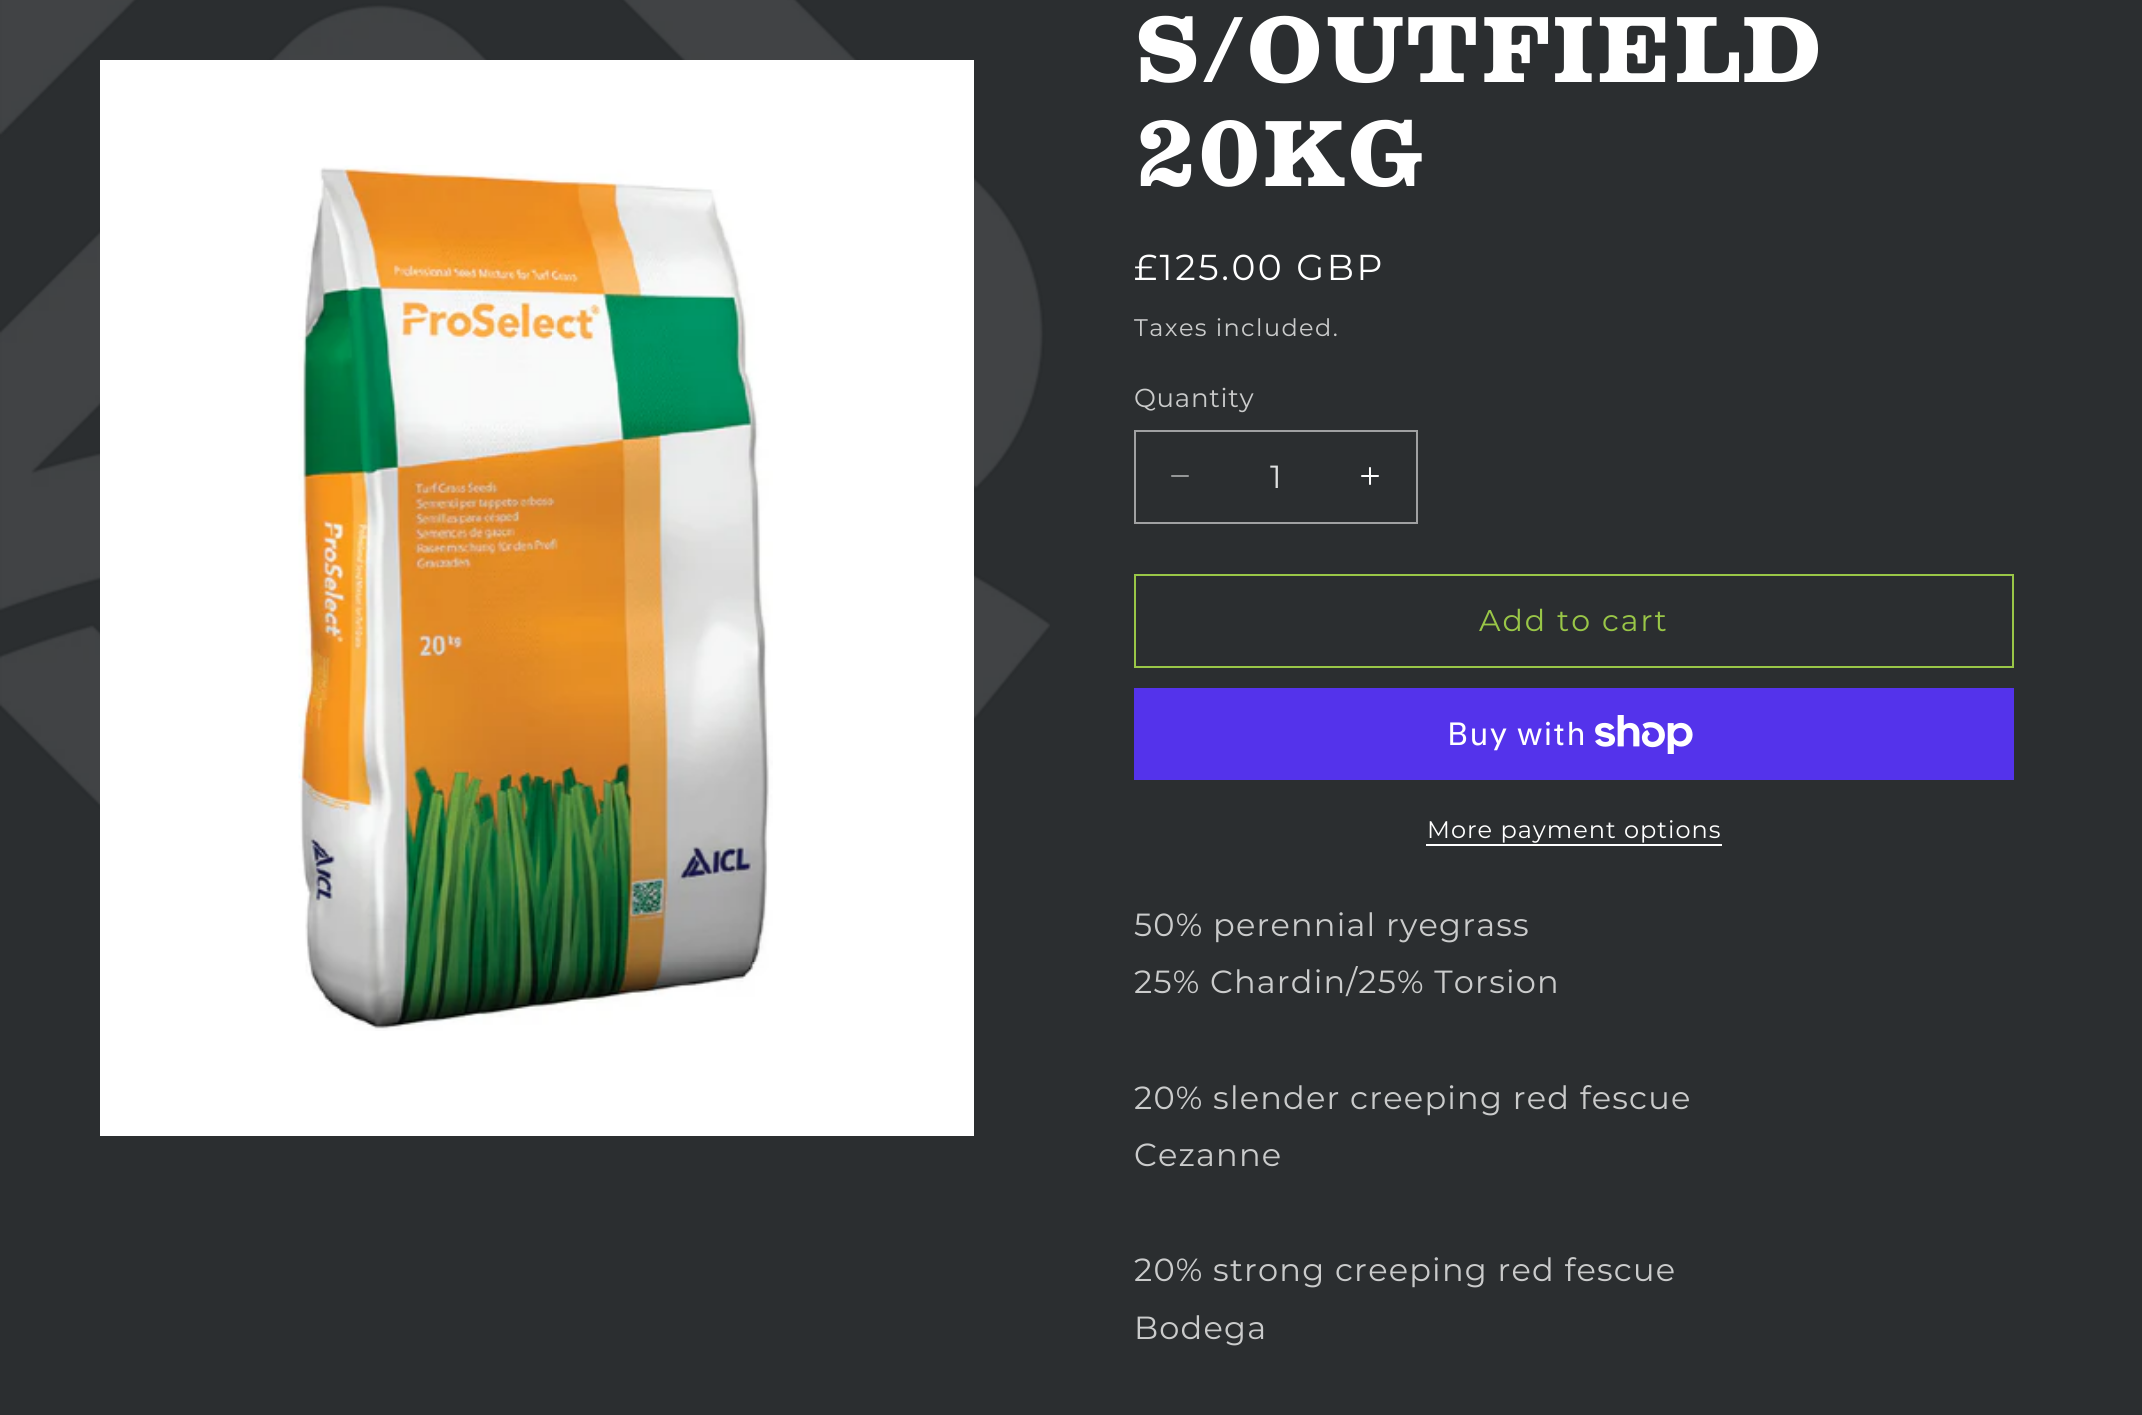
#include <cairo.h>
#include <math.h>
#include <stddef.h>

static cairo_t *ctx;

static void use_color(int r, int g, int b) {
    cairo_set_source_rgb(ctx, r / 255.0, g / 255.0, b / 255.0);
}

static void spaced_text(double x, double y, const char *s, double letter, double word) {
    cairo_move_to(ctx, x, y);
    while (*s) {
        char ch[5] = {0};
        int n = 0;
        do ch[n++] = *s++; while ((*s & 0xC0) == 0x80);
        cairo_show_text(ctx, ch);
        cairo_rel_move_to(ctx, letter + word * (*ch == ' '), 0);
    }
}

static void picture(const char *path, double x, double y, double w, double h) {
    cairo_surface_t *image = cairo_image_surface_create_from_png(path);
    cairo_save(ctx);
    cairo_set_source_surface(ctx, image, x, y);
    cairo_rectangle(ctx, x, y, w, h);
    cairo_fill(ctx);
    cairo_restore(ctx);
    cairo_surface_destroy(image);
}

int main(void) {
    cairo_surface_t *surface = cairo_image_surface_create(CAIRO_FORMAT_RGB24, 2142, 1415);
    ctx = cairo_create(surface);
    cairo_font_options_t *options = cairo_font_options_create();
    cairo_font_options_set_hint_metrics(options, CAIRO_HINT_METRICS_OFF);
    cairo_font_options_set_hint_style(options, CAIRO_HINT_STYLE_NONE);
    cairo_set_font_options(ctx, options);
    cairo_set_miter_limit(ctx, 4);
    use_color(43, 46, 48);
    cairo_paint(ctx);
    picture("img1.png", 0, 0, 1050, 809);
    use_color(255, 255, 255);
    cairo_rectangle(ctx, 100, 60, 874, 1076);
    cairo_fill(ctx);
    picture("img2.png", 298, 165, 475, 866);
    cairo_select_font_face(ctx, "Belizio", CAIRO_FONT_SLANT_NORMAL, CAIRO_FONT_WEIGHT_BOLD);
    cairo_set_font_size(ctx, 80);
    spaced_text(1134, 82, "S/OUTFIELD", 1.2, 0);
    spaced_text(1134, 186, "20KG", 1.2, 0);
    cairo_select_font_face(ctx, "Montserrat", CAIRO_FONT_SLANT_NORMAL, CAIRO_FONT_WEIGHT_NORMAL);
    cairo_set_font_size(ctx, 36);
    spaced_text(1134, 280, "£125.00 GBP", 2.6, 0);
    cairo_set_font_size(ctx, 24);
    use_color(202, 203, 203);
    spaced_text(1134, 336, "Taxes included.", 1.4, 0);
    cairo_set_font_size(ctx, 26);
    spaced_text(1134, 407, "Quantity", 0.75, 0);
    picture("img3.png", 1171, 475, 18, 2);
    picture("img4.png", 1361, 467, 18, 18);
    cairo_rectangle(ctx, 1135, 431, 282, 92);
    use_color(160, 161, 162);
    cairo_stroke(ctx);
    cairo_set_font_size(ctx, 32);
    use_color(223, 224, 224);
    cairo_move_to(ctx, 1270, 488);
    cairo_show_text(ctx, "1");
    cairo_rectangle(ctx, 1135, 575, 878, 92);
    use_color(153, 198, 71);
    cairo_stroke(ctx);
    cairo_set_font_size(ctx, 30);
    spaced_text(1479, 631, "Add to cart", 2, 0);
    use_color(84, 51, 235);
    cairo_rectangle(ctx, 1134, 688, 880, 92);
    cairo_fill(ctx);
    cairo_select_font_face(ctx, "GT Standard", CAIRO_FONT_SLANT_NORMAL, CAIRO_FONT_WEIGHT_NORMAL);
    cairo_set_font_size(ctx, 32);
    use_color(255, 255, 255);
    spaced_text(1447, 745, "Buy with", 1.2, 0);
    picture("img5.png", 1595, 715, 98, 39);
    cairo_select_font_face(ctx, "Montserrat", CAIRO_FONT_SLANT_NORMAL, CAIRO_FONT_WEIGHT_NORMAL);
    cairo_set_font_size(ctx, 24);
    spaced_text(1427, 838, "More payment options", 1, 0);
    cairo_rectangle(ctx, 1426, 844, 296, 2);
    cairo_fill(ctx);
    cairo_set_font_size(ctx, 32);
    use_color(202, 203, 203);
    spaced_text(1134, 936, "50% perennial ryegrass", 1.2, 0);
    spaced_text(1134, 993, "25% Chardin/25% Torsion", 1.2, 0);
    spaced_text(1134, 1109, "20% slender creeping red fescue", 1.2, 0);
    spaced_text(1134, 1166, "Cezanne", 1.2, 0);
    spaced_text(1134, 1281, "20% strong creeping red fescue", 1.2, 0);
    spaced_text(1134, 1339, "Bodega", 1.2, 0);
    cairo_surface_write_to_png(surface, "result.png");
    cairo_font_options_destroy(options);
    cairo_destroy(ctx);
    cairo_surface_destroy(surface);
    return 0;
}
